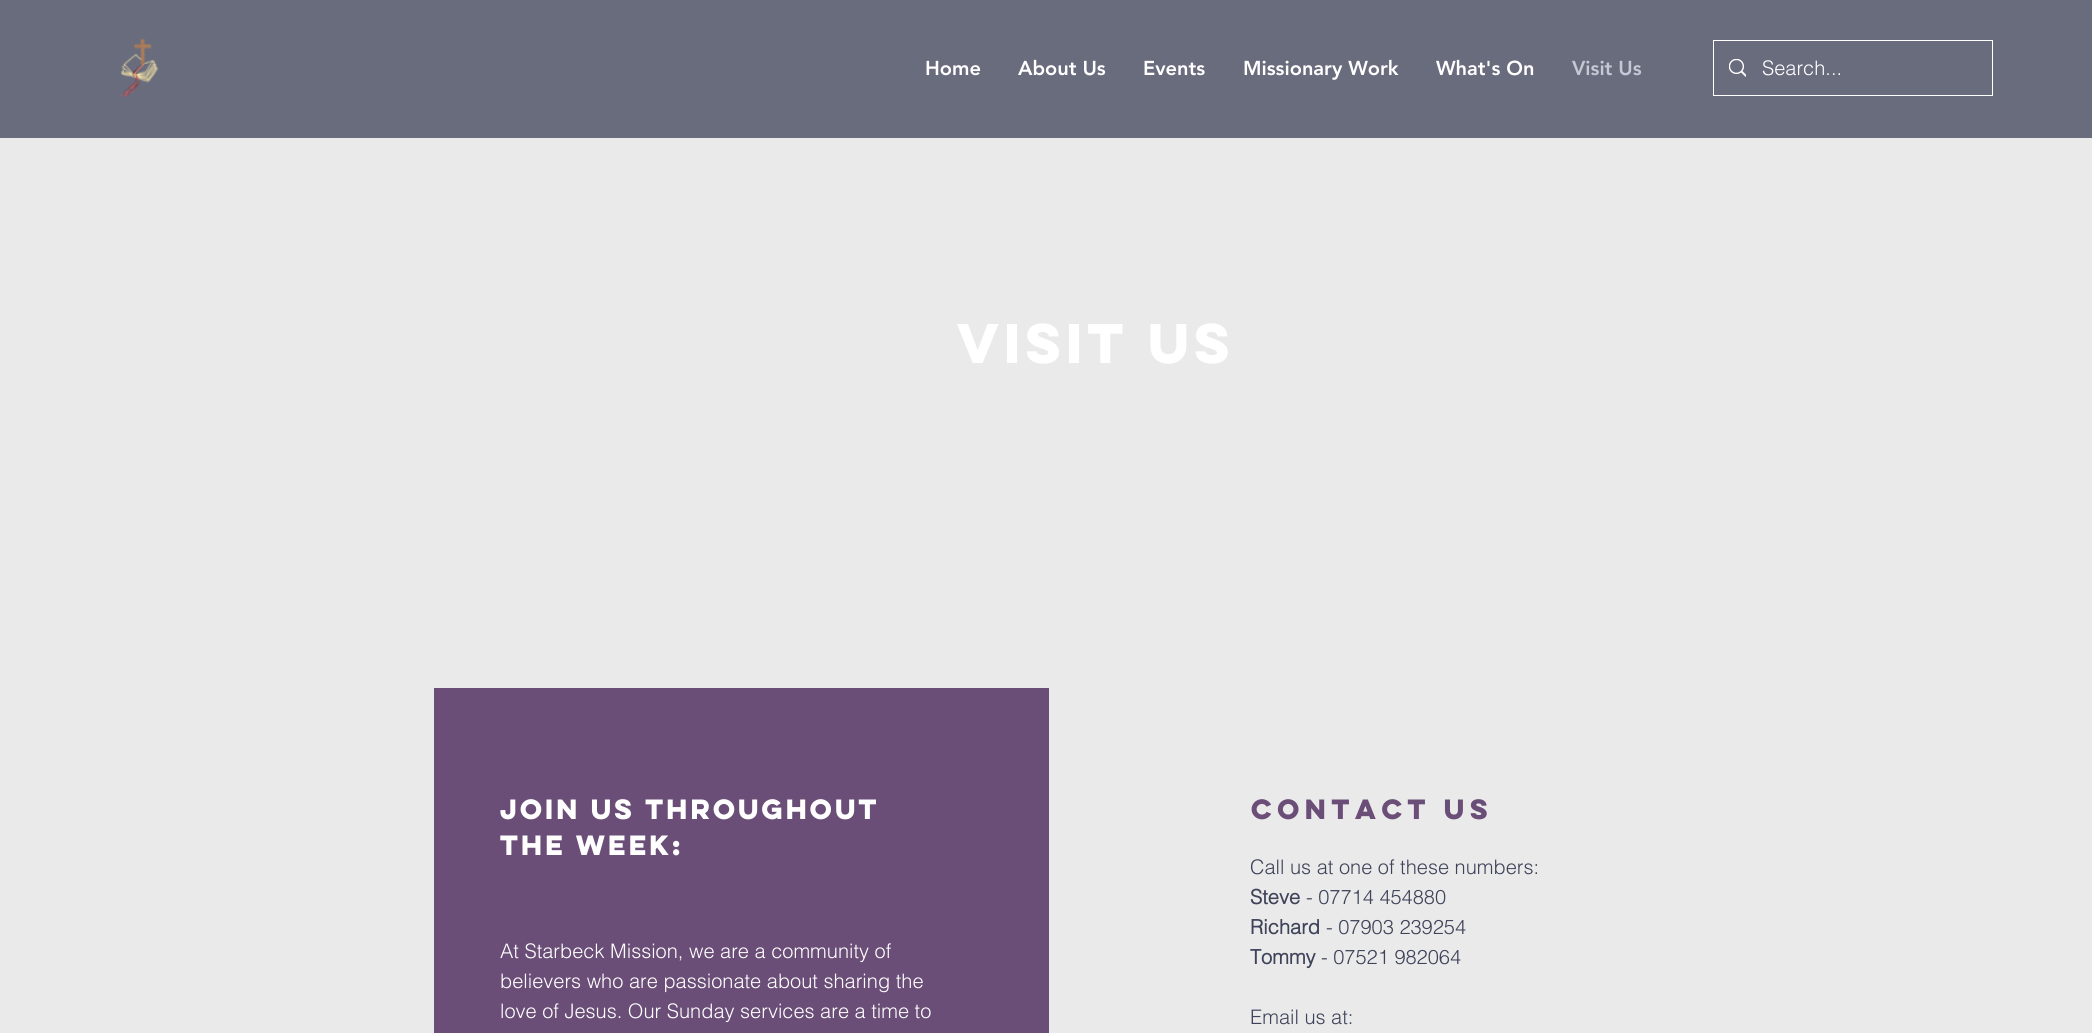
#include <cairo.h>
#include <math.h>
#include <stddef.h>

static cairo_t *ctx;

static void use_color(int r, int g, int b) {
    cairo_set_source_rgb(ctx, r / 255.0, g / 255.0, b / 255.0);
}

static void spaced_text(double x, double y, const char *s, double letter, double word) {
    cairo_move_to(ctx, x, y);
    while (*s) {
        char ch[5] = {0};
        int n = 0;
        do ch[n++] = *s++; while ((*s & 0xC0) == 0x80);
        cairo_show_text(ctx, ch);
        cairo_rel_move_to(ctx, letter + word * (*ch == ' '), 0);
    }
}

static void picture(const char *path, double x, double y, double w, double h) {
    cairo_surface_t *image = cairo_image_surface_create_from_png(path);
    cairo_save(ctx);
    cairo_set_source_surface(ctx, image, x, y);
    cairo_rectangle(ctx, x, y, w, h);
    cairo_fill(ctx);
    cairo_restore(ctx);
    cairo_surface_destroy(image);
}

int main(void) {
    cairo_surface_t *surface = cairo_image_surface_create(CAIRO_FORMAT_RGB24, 2092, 1033);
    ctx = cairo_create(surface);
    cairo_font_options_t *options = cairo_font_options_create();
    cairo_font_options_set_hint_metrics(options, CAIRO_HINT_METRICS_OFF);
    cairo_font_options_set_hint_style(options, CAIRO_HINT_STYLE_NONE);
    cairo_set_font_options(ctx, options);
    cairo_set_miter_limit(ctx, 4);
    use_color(234, 234, 234);
    cairo_paint(ctx);
    use_color(105, 108, 125);
    cairo_rectangle(ctx, 0, 0, 2092, 138);
    cairo_fill(ctx);
    picture("img1.png", 119, 38, 39, 60);
    cairo_select_font_face(ctx, "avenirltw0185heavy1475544 Black", CAIRO_FONT_SLANT_NORMAL, CAIRO_FONT_WEIGHT_NORMAL);
    cairo_set_font_size(ctx, 20);
    use_color(255, 255, 255);
    cairo_move_to(ctx, 925, 75);
    cairo_show_text(ctx, "Home");
    cairo_move_to(ctx, 1018, 75);
    cairo_show_text(ctx, "About Us");
    cairo_move_to(ctx, 1143, 75);
    cairo_show_text(ctx, "Events");
    cairo_move_to(ctx, 1243, 75);
    cairo_show_text(ctx, "Missionary Work");
    cairo_move_to(ctx, 1436, 75);
    cairo_show_text(ctx, "What's On");
    use_color(198, 200, 213);
    cairo_move_to(ctx, 1572, 75);
    cairo_show_text(ctx, "Visit Us");
    cairo_rectangle(ctx, 1713.5, 40.5, 279, 55);
    use_color(255, 255, 255);
    cairo_set_line_width(ctx, 1);
    cairo_stroke(ctx);
    picture("img2.png", 1729, 59, 17, 18);
    cairo_select_font_face(ctx, "helvetica Light", CAIRO_FONT_SLANT_NORMAL, CAIRO_FONT_WEIGHT_NORMAL);
    cairo_move_to(ctx, 1762, 75);
    cairo_show_text(ctx, "Search...");
    cairo_select_font_face(ctx, "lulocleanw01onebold", CAIRO_FONT_SLANT_NORMAL, CAIRO_FONT_WEIGHT_BOLD);
    cairo_set_font_size(ctx, 50);
    spaced_text(957, 363, "Visit us", -6, 0);
    use_color(106, 78, 119);
    cairo_rectangle(ctx, 434, 688, 615, 345);
    cairo_fill(ctx);
    cairo_set_font_size(ctx, 25);
    use_color(255, 255, 255);
    spaced_text(500, 819, "Join us throughout", -2.5, 0);
    spaced_text(500, 855, "the week:", -2.5, 0);
    cairo_select_font_face(ctx, "helvetica Light", CAIRO_FONT_SLANT_NORMAL, CAIRO_FONT_WEIGHT_NORMAL);
    cairo_set_font_size(ctx, 20);
    cairo_move_to(ctx, 500, 958);
    cairo_show_text(ctx, "At Starbeck Mission, we are a community of");
    cairo_move_to(ctx, 500, 988);
    cairo_show_text(ctx, "believers who are passionate about sharing the");
    cairo_move_to(ctx, 500, 1018);
    cairo_show_text(ctx, "love of Jesus. Our Sunday services are a time to");
    cairo_select_font_face(ctx, "lulocleanw01onebold", CAIRO_FONT_SLANT_NORMAL, CAIRO_FONT_WEIGHT_BOLD);
    cairo_set_font_size(ctx, 25);
    use_color(106, 78, 119);
    cairo_move_to(ctx, 1251, 819);
    cairo_show_text(ctx, "Contact Us");
    cairo_select_font_face(ctx, "helvetica Light", CAIRO_FONT_SLANT_NORMAL, CAIRO_FONT_WEIGHT_NORMAL);
    cairo_set_font_size(ctx, 20);
    use_color(63, 67, 89);
    cairo_move_to(ctx, 1250, 874);
    cairo_show_text(ctx, "Call us at one of these numbers:");
    cairo_select_font_face(ctx, "helvetica", CAIRO_FONT_SLANT_NORMAL, CAIRO_FONT_WEIGHT_BOLD);
    cairo_move_to(ctx, 1250, 904);
    cairo_show_text(ctx, "Steve");
    cairo_select_font_face(ctx, "helvetica Light", CAIRO_FONT_SLANT_NORMAL, CAIRO_FONT_WEIGHT_NORMAL);
    cairo_move_to(ctx, 1306, 904);
    cairo_show_text(ctx, "- 07714 454880");
    cairo_select_font_face(ctx, "helvetica", CAIRO_FONT_SLANT_NORMAL, CAIRO_FONT_WEIGHT_BOLD);
    cairo_move_to(ctx, 1250, 934);
    cairo_show_text(ctx, "Richard");
    cairo_select_font_face(ctx, "helvetica Light", CAIRO_FONT_SLANT_NORMAL, CAIRO_FONT_WEIGHT_NORMAL);
    cairo_move_to(ctx, 1326, 934);
    cairo_show_text(ctx, "- 07903 239254");
    cairo_select_font_face(ctx, "helvetica", CAIRO_FONT_SLANT_NORMAL, CAIRO_FONT_WEIGHT_BOLD);
    cairo_move_to(ctx, 1250, 964);
    cairo_show_text(ctx, "Tommy");
    cairo_select_font_face(ctx, "helvetica Light", CAIRO_FONT_SLANT_NORMAL, CAIRO_FONT_WEIGHT_NORMAL);
    cairo_move_to(ctx, 1321, 964);
    cairo_show_text(ctx, "- 07521 982064");
    cairo_move_to(ctx, 1250, 1024);
    cairo_show_text(ctx, "Email us at:");
    cairo_surface_write_to_png(surface, "result.png");
    cairo_font_options_destroy(options);
    cairo_destroy(ctx);
    cairo_surface_destroy(surface);
    return 0;
}
